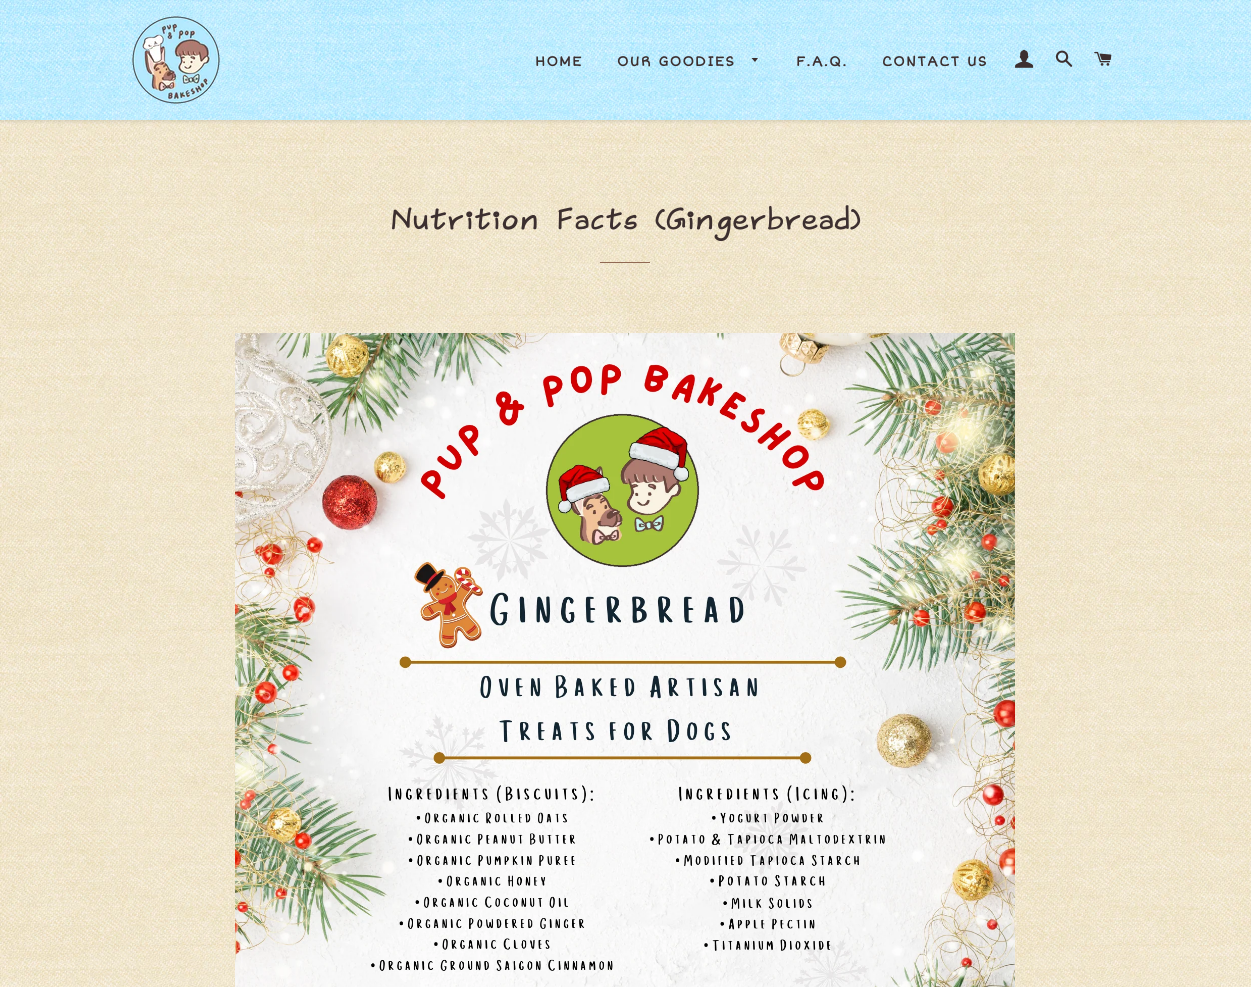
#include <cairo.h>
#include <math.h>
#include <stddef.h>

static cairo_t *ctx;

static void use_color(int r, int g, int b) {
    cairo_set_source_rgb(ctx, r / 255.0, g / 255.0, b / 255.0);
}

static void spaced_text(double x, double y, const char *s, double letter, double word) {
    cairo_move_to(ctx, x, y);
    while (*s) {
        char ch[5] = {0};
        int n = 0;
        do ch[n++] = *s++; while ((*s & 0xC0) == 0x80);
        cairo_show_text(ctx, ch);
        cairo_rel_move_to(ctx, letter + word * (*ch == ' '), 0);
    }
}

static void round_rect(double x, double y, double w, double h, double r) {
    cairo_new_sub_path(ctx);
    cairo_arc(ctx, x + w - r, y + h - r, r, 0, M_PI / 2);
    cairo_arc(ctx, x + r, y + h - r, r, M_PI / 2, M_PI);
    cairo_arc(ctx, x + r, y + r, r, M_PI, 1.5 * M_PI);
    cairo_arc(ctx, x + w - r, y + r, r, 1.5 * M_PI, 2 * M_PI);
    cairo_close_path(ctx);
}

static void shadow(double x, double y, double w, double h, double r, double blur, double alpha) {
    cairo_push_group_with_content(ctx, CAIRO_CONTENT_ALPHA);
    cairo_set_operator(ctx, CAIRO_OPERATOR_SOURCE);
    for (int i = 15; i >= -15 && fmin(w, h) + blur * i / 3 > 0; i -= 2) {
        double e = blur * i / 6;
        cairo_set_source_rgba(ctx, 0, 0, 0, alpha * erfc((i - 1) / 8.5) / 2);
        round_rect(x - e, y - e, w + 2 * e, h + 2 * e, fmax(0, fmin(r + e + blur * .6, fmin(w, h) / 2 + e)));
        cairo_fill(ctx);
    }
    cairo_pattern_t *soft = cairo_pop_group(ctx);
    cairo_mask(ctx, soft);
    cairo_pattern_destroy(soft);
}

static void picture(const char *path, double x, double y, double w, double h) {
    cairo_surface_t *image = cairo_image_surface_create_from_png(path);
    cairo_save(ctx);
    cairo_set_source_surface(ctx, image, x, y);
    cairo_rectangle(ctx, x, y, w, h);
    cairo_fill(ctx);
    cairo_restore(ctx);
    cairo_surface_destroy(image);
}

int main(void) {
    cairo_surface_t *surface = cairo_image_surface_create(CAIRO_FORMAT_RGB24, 1251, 987);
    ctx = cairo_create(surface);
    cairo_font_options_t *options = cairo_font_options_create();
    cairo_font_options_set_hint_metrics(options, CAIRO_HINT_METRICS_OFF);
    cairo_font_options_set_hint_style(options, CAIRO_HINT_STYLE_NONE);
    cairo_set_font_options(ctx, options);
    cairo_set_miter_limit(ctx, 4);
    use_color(255, 255, 255);
    cairo_paint(ctx);
    picture("img1.png", 0, 120, 1251, 867);
    use_color(0, 0, 0);
    shadow(0, 2, 1251, 120, 0, 2, 0.1);
    picture("img2.png", 0, 0, 1251, 120);
    picture("img3.png", 132, 16, 88, 88);
    cairo_select_font_face(ctx, "Short Stack", CAIRO_FONT_SLANT_NORMAL, CAIRO_FONT_WEIGHT_BOLD);
    cairo_set_font_size(ctx, 14);
    use_color(60, 47, 47);
    spaced_text(535, 66, "HOME", 1.4, 0);
    spaced_text(617, 66, "OUR GOODIES", 1.4, 0);
    cairo_new_path(ctx);
    cairo_move_to(ctx, 751.5, 58);
    cairo_line_to(ctx, 755, 62);
    cairo_line_to(ctx, 758, 58);
    cairo_close_path(ctx);
    cairo_fill(ctx);
    spaced_text(796, 66, "F.A.Q.", 1.4, 0);
    spaced_text(882, 66, "CONTACT US", 1.4, 0);
    picture("img4.png", 1015, 49, 19, 19);
    picture("img5.png", 1055, 50, 18, 17);
    picture("img6.png", 1094, 51, 18, 15);
    cairo_select_font_face(ctx, "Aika", CAIRO_FONT_SLANT_NORMAL, CAIRO_FONT_WEIGHT_BOLD);
    cairo_set_font_size(ctx, 30);
    cairo_move_to(ctx, 391, 229);
    cairo_show_text(ctx, "Nutrition Facts (Gingerbread)");
    use_color(145, 105, 83);
    cairo_rectangle(ctx, 600, 262, 50, 1);
    cairo_fill(ctx);
    picture("img7.png", 235, 333, 780, 654);
    cairo_surface_write_to_png(surface, "result.png");
    cairo_font_options_destroy(options);
    cairo_destroy(ctx);
    cairo_surface_destroy(surface);
    return 0;
}
